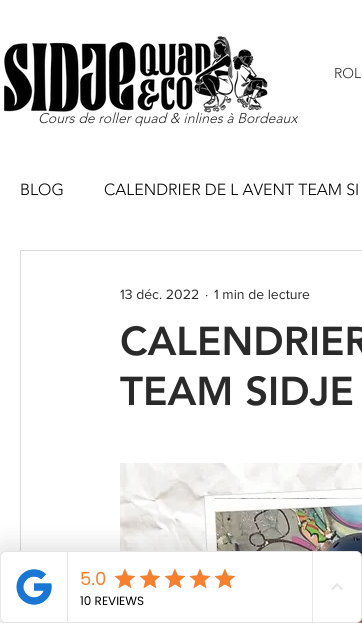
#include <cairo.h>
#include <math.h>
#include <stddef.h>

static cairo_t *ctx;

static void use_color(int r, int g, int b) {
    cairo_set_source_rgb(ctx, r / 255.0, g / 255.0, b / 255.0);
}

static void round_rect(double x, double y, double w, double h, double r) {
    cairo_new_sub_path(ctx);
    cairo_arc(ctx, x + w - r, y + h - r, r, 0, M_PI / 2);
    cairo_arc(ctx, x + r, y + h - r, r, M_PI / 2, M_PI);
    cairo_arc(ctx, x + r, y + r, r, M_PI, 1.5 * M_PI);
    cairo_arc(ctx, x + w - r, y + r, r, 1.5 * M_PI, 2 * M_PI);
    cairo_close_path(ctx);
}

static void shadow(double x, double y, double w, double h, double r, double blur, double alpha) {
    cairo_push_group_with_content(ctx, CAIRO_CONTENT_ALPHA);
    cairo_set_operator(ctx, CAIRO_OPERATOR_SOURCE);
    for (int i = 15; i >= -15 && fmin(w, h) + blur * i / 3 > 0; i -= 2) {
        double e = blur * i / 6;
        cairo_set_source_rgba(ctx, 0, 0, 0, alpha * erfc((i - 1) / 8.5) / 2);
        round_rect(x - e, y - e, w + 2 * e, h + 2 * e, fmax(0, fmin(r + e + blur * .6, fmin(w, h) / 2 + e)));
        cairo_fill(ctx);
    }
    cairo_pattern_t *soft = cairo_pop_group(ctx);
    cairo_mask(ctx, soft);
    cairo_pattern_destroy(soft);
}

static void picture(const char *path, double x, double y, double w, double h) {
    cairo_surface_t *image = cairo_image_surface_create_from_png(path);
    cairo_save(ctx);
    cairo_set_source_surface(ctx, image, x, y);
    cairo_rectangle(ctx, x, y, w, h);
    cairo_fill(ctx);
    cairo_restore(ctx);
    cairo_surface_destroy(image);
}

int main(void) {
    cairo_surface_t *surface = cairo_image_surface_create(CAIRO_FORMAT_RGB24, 362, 623);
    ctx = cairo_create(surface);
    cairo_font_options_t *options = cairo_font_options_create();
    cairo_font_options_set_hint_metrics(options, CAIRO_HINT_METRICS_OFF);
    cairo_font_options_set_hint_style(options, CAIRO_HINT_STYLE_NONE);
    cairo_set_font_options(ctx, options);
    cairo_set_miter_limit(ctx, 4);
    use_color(255, 255, 255);
    cairo_paint(ctx);
    cairo_select_font_face(ctx, "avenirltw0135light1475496 Light", CAIRO_FONT_SLANT_ITALIC, CAIRO_FONT_WEIGHT_NORMAL);
    cairo_set_font_size(ctx, 14);
    use_color(42, 42, 42);
    cairo_move_to(ctx, 38, 123);
    cairo_show_text(ctx, "Cours de roller quad & inlines à Bordeaux");
    picture("img1.png", 4, 36, 264, 77);
    cairo_select_font_face(ctx, "avenirltw0135light1475496 Light", CAIRO_FONT_SLANT_NORMAL, CAIRO_FONT_WEIGHT_NORMAL);
    cairo_move_to(ctx, 334, 78);
    cairo_show_text(ctx, "ROL");
    cairo_set_font_size(ctx, 16);
    use_color(0, 0, 0);
    cairo_move_to(ctx, 20, 195);
    cairo_show_text(ctx, "BLOG");
    cairo_move_to(ctx, 104, 195);
    cairo_show_text(ctx, "CALENDRIER DE L AVENT TEAM SI");
    cairo_rectangle(ctx, 20.5, 250.5, 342, 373);
    use_color(217, 217, 217);
    cairo_set_line_width(ctx, 1);
    cairo_stroke(ctx);
    cairo_select_font_face(ctx, "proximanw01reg", CAIRO_FONT_SLANT_NORMAL, CAIRO_FONT_WEIGHT_NORMAL);
    cairo_set_font_size(ctx, 14);
    use_color(42, 42, 42);
    cairo_move_to(ctx, 120, 299);
    cairo_show_text(ctx, "13 déc. 2022");
    cairo_move_to(ctx, 205, 299);
    cairo_show_text(ctx, "·");
    cairo_move_to(ctx, 214, 299);
    cairo_show_text(ctx, "1 min de lecture");
    cairo_select_font_face(ctx, "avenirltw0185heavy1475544 Black", CAIRO_FONT_SLANT_NORMAL, CAIRO_FONT_WEIGHT_NORMAL);
    cairo_set_font_size(ctx, 40);
    cairo_move_to(ctx, 120, 355);
    cairo_show_text(ctx, "CALENDRIER");
    cairo_move_to(ctx, 120, 405);
    cairo_show_text(ctx, "TEAM SIDJE");
    picture("img2.png", 120, 463, 242, 160);
    use_color(0, 0, 0);
    shadow(-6, 545, 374, 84, 12, 12, 0.12);
    use_color(255, 255, 255);
    round_rect(0.5, 551.5, 361, 71, 5.5);
    cairo_fill_preserve(ctx);
    use_color(229, 229, 229);
    cairo_stroke(ctx);
    use_color(255, 255, 255);
    cairo_new_path(ctx);
    cairo_move_to(ctx, 7, 552);
    cairo_line_to(ctx, 68, 552);
    cairo_line_to(ctx, 68, 622);
    cairo_line_to(ctx, 7, 622);
    cairo_curve_to(ctx, 3.5, 622, 1, 619.5, 1, 616);
    cairo_line_to(ctx, 1, 558);
    cairo_curve_to(ctx, 1, 554.5, 3.5, 552, 7, 552);
    cairo_close_path(ctx);
    cairo_fill(ctx);
    use_color(229, 229, 229);
    cairo_rectangle(ctx, 67, 552, 1, 70);
    cairo_fill(ctx);
    picture("img3.png", 16, 569, 36, 36);
    cairo_rectangle(ctx, 312, 552, 1, 70);
    cairo_fill(ctx);
    cairo_select_font_face(ctx, "Poppins", CAIRO_FONT_SLANT_NORMAL, CAIRO_FONT_WEIGHT_NORMAL);
    cairo_set_font_size(ctx, 18);
    use_color(247, 128, 47);
    cairo_move_to(ctx, 80, 585);
    cairo_show_text(ctx, "5.0");
    picture("img5.png", 114, 569, 21, 19);
    picture("img4.png", 114, 568, 22, 21);
    picture("img5.png", 139, 569, 21, 19);
    picture("img4.png", 139, 568, 22, 21);
    picture("img5.png", 164, 569, 21, 19);
    picture("img4.png", 164, 568, 22, 21);
    picture("img5.png", 189, 569, 21, 19);
    picture("img4.png", 189, 568, 22, 21);
    picture("img5.png", 214, 569, 21, 19);
    picture("img4.png", 214, 568, 22, 21);
    cairo_set_font_size(ctx, 12);
    use_color(0, 0, 0);
    cairo_move_to(ctx, 80, 605);
    cairo_show_text(ctx, "10 REVIEWS");
    picture("img6.png", 331, 583, 12, 8);
    cairo_surface_write_to_png(surface, "result.png");
    cairo_font_options_destroy(options);
    cairo_destroy(ctx);
    cairo_surface_destroy(surface);
    return 0;
}
